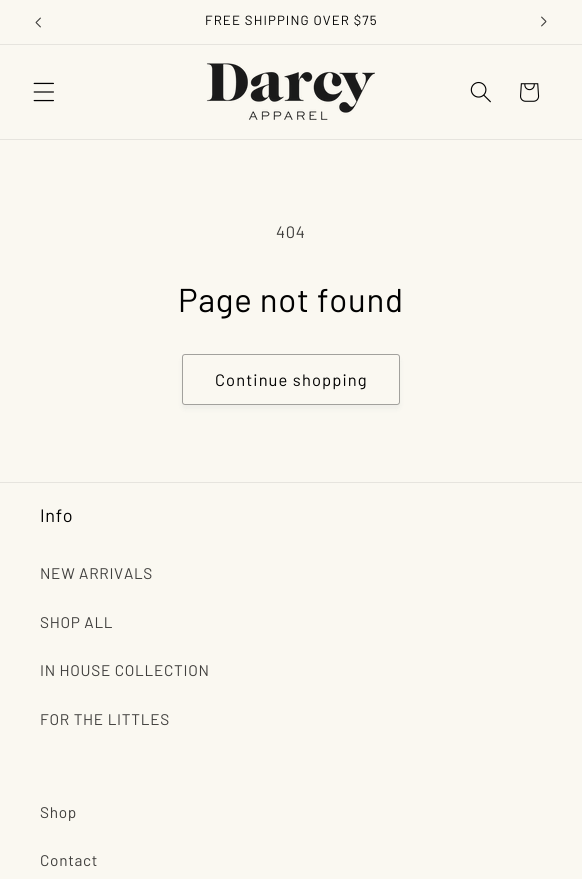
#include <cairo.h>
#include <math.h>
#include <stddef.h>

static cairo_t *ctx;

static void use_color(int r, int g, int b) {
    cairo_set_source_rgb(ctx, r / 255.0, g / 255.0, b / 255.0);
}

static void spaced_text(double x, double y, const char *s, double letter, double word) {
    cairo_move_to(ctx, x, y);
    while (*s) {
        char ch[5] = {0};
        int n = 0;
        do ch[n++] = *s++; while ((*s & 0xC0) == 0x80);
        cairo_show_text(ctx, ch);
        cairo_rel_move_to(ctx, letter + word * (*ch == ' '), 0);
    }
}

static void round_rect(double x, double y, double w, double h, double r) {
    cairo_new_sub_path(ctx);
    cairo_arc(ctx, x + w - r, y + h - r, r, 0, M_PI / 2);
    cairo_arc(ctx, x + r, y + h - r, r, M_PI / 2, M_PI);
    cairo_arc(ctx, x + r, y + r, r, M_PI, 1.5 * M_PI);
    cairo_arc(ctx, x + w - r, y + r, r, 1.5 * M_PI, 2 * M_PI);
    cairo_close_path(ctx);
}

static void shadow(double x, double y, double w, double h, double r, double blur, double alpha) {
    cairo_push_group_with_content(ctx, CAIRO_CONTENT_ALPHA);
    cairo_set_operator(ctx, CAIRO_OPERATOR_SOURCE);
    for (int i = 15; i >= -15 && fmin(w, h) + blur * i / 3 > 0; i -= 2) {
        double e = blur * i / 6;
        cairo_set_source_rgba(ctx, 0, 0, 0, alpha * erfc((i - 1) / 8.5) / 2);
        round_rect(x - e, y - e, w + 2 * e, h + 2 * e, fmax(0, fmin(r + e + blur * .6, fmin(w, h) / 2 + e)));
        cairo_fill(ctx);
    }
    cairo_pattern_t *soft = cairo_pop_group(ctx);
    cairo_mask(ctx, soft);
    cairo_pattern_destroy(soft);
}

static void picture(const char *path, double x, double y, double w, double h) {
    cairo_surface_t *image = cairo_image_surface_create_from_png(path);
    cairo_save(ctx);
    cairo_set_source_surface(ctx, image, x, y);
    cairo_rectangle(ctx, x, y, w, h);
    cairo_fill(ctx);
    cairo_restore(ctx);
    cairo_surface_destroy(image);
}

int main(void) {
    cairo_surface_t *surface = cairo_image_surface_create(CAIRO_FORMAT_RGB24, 582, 879);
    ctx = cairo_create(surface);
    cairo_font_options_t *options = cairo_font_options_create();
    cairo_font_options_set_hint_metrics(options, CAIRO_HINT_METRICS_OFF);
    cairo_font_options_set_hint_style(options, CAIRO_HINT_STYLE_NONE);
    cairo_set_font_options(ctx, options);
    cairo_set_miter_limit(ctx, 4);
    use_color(250, 248, 241);
    cairo_paint(ctx);
    use_color(230, 228, 222);
    cairo_rectangle(ctx, 0, 44, 582, 1);
    cairo_fill(ctx);
    picture("img1.png", 35, 17, 6, 11);
    cairo_select_font_face(ctx, "Barlow", CAIRO_FONT_SLANT_NORMAL, CAIRO_FONT_WEIGHT_NORMAL);
    cairo_set_font_size(ctx, 13.25);
    use_color(0, 0, 0);
    spaced_text(205, 25, "FREE SHIPPING OVER $75", 1.1, 0);
    picture("img2.png", 541, 16, 6, 11);
    use_color(230, 228, 222);
    cairo_rectangle(ctx, 0, 139, 582, 1);
    cairo_fill(ctx);
    picture("img3.png", 33, 82, 21, 20);
    picture("img4.png", 206, 63, 169, 57);
    picture("img5.png", 470, 81, 21, 22);
    picture("img6.png", 520, 83, 20, 19);
    cairo_set_font_size(ctx, 16.5);
    use_color(63, 62, 60);
    spaced_text(276, 238, "404", 0.7, 0);
    cairo_set_font_size(ctx, 33);
    use_color(0, 0, 0);
    spaced_text(178, 312, "Page not found", 0.7, 0);
    use_color(15, 45, 73);
    shadow(182, 358, 218, 51, 3, 2.5, 0.05);
    use_color(250, 248, 241);
    round_rect(182, 354, 218, 51, 3);
    cairo_fill(ctx);
    round_rect(182.5, 354.5, 217, 50, 2.5);
    use_color(162, 161, 157);
    cairo_set_line_width(ctx, 1);
    cairo_stroke(ctx);
    cairo_set_font_size(ctx, 16.5);
    use_color(0, 0, 0);
    spaced_text(215, 386, "Continue shopping", 1.1, 0);
    use_color(230, 228, 222);
    cairo_rectangle(ctx, 0, 482, 582, 1);
    cairo_fill(ctx);
    cairo_set_font_size(ctx, 18);
    use_color(0, 0, 0);
    spaced_text(40, 522, "Info", 0.7, 0);
    cairo_set_font_size(ctx, 15.4);
    use_color(63, 62, 60);
    spaced_text(40, 579, "NEW ARRIVALS", 0.7, 0);
    spaced_text(40, 628, "SHOP ALL", 0.7, 0);
    spaced_text(40, 676, "IN HOUSE COLLECTION", 0.7, 0);
    spaced_text(40, 725, "FOR THE LITTLES", 0.7, 0);
    spaced_text(40, 818, "Shop", 0.7, 0);
    spaced_text(40, 866, "Contact", 0.7, 0);
    cairo_surface_write_to_png(surface, "result.png");
    cairo_font_options_destroy(options);
    cairo_destroy(ctx);
    cairo_surface_destroy(surface);
    return 0;
}
